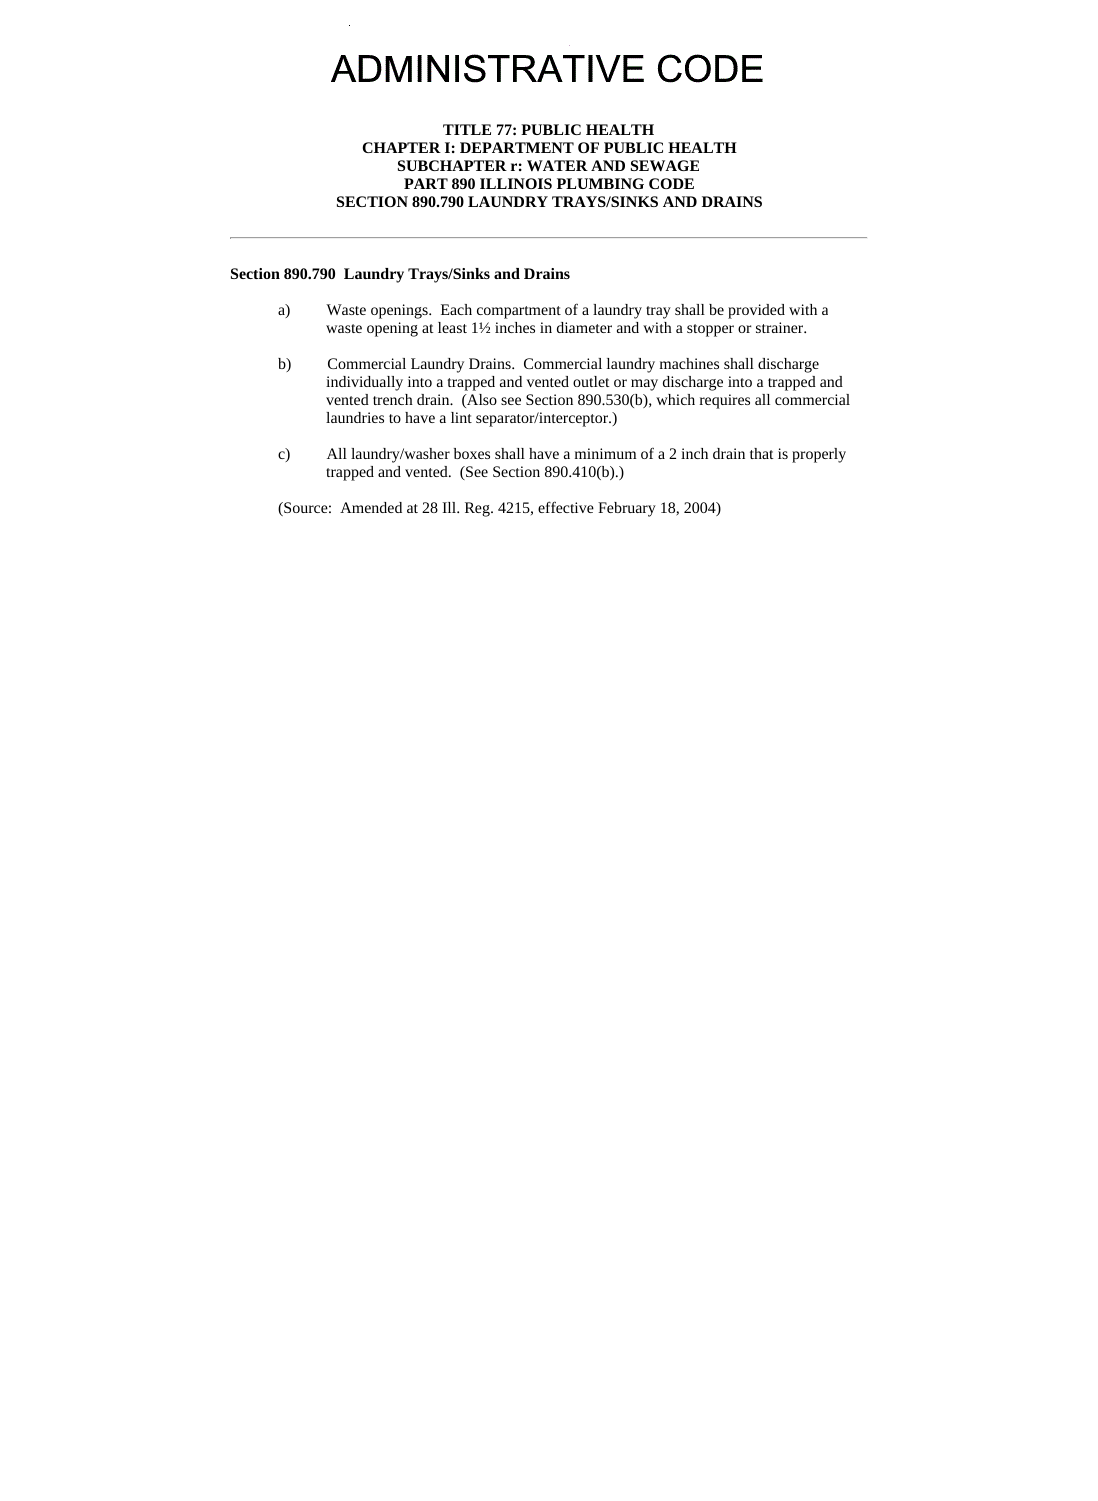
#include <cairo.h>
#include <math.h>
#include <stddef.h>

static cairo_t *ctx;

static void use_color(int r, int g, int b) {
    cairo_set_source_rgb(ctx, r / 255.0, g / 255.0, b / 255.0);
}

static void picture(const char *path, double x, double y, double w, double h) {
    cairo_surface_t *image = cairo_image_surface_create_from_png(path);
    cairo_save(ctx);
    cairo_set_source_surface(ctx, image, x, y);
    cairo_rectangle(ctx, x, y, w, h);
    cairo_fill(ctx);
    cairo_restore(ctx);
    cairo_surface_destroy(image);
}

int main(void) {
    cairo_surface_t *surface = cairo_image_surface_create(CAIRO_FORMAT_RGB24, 1098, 1501);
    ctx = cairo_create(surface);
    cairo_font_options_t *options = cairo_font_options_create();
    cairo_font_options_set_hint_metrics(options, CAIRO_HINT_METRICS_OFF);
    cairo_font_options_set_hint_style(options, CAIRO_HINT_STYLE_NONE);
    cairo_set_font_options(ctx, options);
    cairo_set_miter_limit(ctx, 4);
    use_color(255, 255, 255);
    cairo_paint(ctx);
    picture("img1.png", 331, 25, 432, 58);
    cairo_select_font_face(ctx, "Liberation Serif", CAIRO_FONT_SLANT_NORMAL, CAIRO_FONT_WEIGHT_BOLD);
    cairo_set_font_size(ctx, 16);
    use_color(0, 0, 0);
    cairo_move_to(ctx, 443, 135);
    cairo_show_text(ctx, "TITLE 77: PUBLIC HEALTH");
    cairo_move_to(ctx, 362, 153);
    cairo_show_text(ctx, "CHAPTER I: DEPARTMENT OF PUBLIC HEALTH");
    cairo_move_to(ctx, 397, 171);
    cairo_show_text(ctx, "SUBCHAPTER r: WATER AND SEWAGE");
    cairo_move_to(ctx, 404, 189);
    cairo_show_text(ctx, "PART 890 ILLINOIS PLUMBING CODE");
    cairo_move_to(ctx, 336, 207);
    cairo_show_text(ctx, "SECTION 890.790 LAUNDRY TRAYS/SINKS AND DRAINS");
    use_color(159, 159, 159);
    cairo_rectangle(ctx, 230, 237, 638, 1);
    cairo_fill(ctx);
    use_color(238, 238, 238);
    cairo_rectangle(ctx, 867, 237, 1, 2);
    cairo_fill(ctx);
    cairo_rectangle(ctx, 230, 238, 638, 1);
    cairo_fill(ctx);
    use_color(159, 159, 159);
    cairo_rectangle(ctx, 230, 237, 1, 2);
    cairo_fill(ctx);
    use_color(0, 0, 0);
    cairo_move_to(ctx, 230, 279);
    cairo_show_text(ctx, "Section 890.790  Laundry Trays/Sinks and Drains");
    cairo_select_font_face(ctx, "Liberation Serif", CAIRO_FONT_SLANT_NORMAL, CAIRO_FONT_WEIGHT_NORMAL);
    cairo_move_to(ctx, 278, 315);
    cairo_show_text(ctx, "a)         Waste openings.  Each compartment of a laundry tray shall be provided with a");
    cairo_move_to(ctx, 326, 333);
    cairo_show_text(ctx, "waste opening at least 1½ inches in diameter and with a stopper or strainer.");
    cairo_move_to(ctx, 278, 369);
    cairo_show_text(ctx, "b)         Commercial Laundry Drains.  Commercial laundry machines shall discharge");
    cairo_move_to(ctx, 326, 387);
    cairo_show_text(ctx, "individually into a trapped and vented outlet or may discharge into a trapped and");
    cairo_move_to(ctx, 326, 405);
    cairo_show_text(ctx, "vented trench drain.  (Also see Section 890.530(b), which requires all commercial");
    cairo_move_to(ctx, 326, 423);
    cairo_show_text(ctx, "laundries to have a lint separator/interceptor.)");
    cairo_move_to(ctx, 278, 459);
    cairo_show_text(ctx, "c)         All laundry/washer boxes shall have a minimum of a 2 inch drain that is properly");
    cairo_move_to(ctx, 326, 477);
    cairo_show_text(ctx, "trapped and vented.  (See Section 890.410(b).)");
    cairo_move_to(ctx, 278, 513);
    cairo_show_text(ctx, "(Source:  Amended at 28 Ill. Reg. 4215, effective February 18, 2004)");
    cairo_surface_write_to_png(surface, "result.png");
    cairo_font_options_destroy(options);
    cairo_destroy(ctx);
    cairo_surface_destroy(surface);
    return 0;
}
